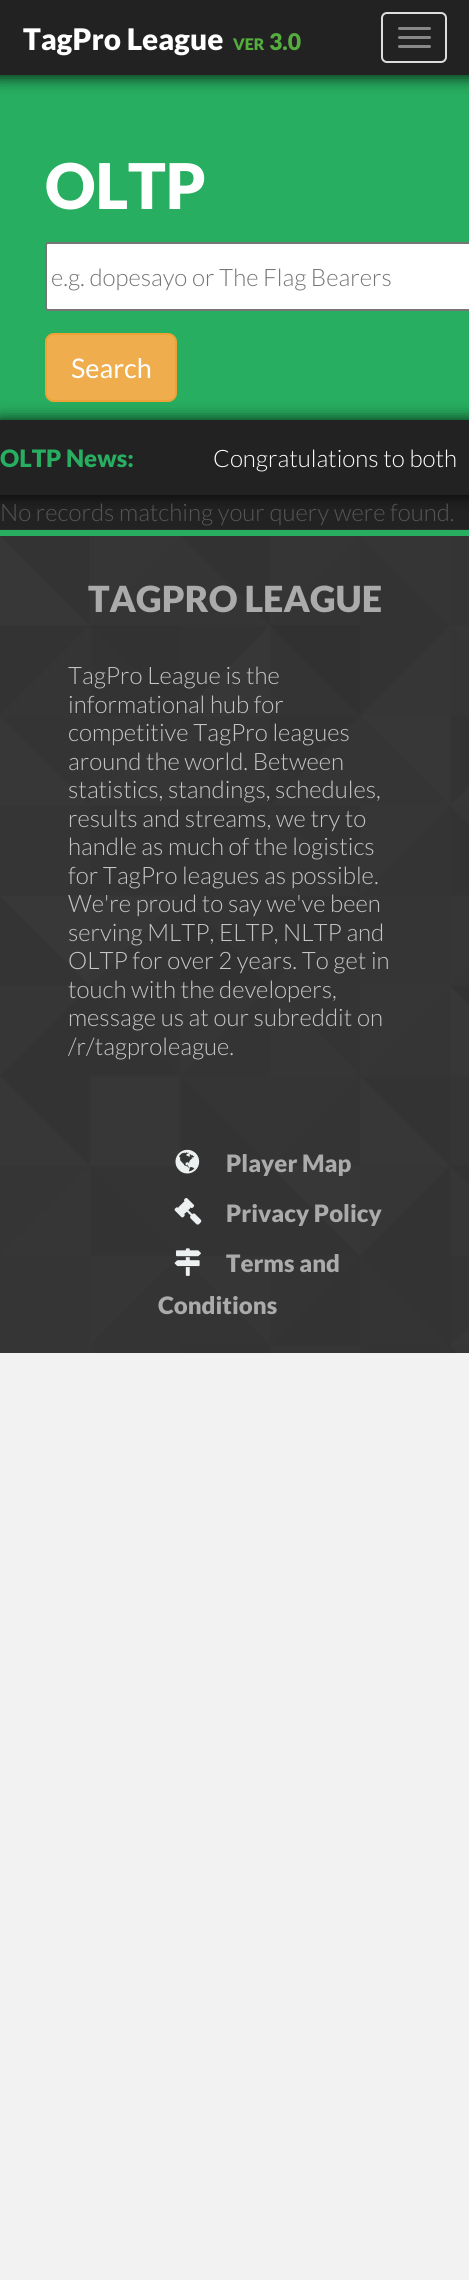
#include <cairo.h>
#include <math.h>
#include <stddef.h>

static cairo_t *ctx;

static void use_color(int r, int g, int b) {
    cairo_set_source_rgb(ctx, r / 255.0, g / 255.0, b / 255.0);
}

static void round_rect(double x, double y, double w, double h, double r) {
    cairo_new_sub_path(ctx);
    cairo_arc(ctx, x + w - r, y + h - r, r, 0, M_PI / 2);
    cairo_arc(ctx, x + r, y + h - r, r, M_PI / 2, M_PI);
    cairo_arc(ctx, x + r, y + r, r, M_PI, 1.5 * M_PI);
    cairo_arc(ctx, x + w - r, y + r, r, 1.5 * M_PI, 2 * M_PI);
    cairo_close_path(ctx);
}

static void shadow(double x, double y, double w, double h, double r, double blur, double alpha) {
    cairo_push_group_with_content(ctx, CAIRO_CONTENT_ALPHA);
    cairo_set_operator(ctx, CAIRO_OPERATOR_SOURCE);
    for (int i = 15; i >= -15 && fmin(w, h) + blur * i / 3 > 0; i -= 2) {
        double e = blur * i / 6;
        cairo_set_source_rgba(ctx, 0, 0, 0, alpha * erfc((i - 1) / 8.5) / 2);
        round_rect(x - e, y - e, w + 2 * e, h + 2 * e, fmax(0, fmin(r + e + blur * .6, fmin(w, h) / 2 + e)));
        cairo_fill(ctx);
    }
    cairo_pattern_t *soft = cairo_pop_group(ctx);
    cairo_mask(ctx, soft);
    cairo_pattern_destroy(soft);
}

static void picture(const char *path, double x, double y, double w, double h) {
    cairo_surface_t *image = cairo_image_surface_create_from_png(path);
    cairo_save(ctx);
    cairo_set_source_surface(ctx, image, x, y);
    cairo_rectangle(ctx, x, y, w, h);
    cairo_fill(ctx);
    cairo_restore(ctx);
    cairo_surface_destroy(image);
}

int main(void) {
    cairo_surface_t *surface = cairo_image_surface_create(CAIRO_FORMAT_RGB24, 469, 2280);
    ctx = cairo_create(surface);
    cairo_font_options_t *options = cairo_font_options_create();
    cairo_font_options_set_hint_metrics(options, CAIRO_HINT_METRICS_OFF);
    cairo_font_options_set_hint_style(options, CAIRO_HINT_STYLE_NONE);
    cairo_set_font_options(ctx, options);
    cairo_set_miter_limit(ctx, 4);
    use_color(242, 242, 242);
    cairo_paint(ctx);
    use_color(39, 174, 96);
    cairo_rectangle(ctx, 0, 75, 469, 345);
    cairo_fill(ctx);
    use_color(0, 0, 0);
    shadow(-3, -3, 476, 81, 0, 7.5, 0.75);
    use_color(34, 34, 34);
    cairo_rectangle(ctx, 0, 0, 469, 75);
    cairo_fill(ctx);
    cairo_select_font_face(ctx, "Lato Black", CAIRO_FONT_SLANT_NORMAL, CAIRO_FONT_WEIGHT_NORMAL);
    cairo_set_font_size(ctx, 29.75);
    use_color(255, 255, 255);
    cairo_move_to(ctx, 23, 50);
    cairo_show_text(ctx, "TagPro League");
    cairo_set_font_size(ctx, 16);
    use_color(85, 173, 61);
    cairo_move_to(ctx, 233, 50);
    cairo_show_text(ctx, "VER");
    cairo_set_font_size(ctx, 23);
    cairo_move_to(ctx, 269, 50);
    cairo_show_text(ctx, "3.0");
    round_rect(382, 13, 64, 49, 5);
    use_color(221, 221, 221);
    cairo_stroke(ctx);
    use_color(136, 136, 136);
    round_rect(398, 27, 33, 3, 1.5);
    cairo_fill(ctx);
    round_rect(398, 36, 33, 3, 1.5);
    cairo_fill(ctx);
    round_rect(398, 45, 33, 3, 1.5);
    cairo_fill(ctx);
    cairo_set_font_size(ctx, 63);
    use_color(255, 255, 255);
    cairo_move_to(ctx, 45, 209);
    cairo_show_text(ctx, "OLTP");
    round_rect(46, 243, 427, 67, 2);
    cairo_fill_preserve(ctx);
    use_color(118, 118, 118);
    cairo_stroke(ctx);
    cairo_select_font_face(ctx, "Lato Light", CAIRO_FONT_SLANT_NORMAL, CAIRO_FONT_WEIGHT_NORMAL);
    cairo_set_font_size(ctx, 24);
    use_color(117, 117, 117);
    cairo_move_to(ctx, 51, 286);
    cairo_show_text(ctx, "e.g. dopesayo or The Flag Bearers");
    use_color(240, 173, 78);
    round_rect(46, 334, 130, 67, 8);
    cairo_fill_preserve(ctx);
    use_color(238, 162, 54);
    cairo_stroke(ctx);
    cairo_select_font_face(ctx, "Lato", CAIRO_FONT_SLANT_NORMAL, CAIRO_FONT_WEIGHT_NORMAL);
    cairo_set_font_size(ctx, 27);
    use_color(255, 255, 255);
    cairo_move_to(ctx, 71, 378);
    cairo_show_text(ctx, "Search");
    use_color(34, 34, 34);
    cairo_rectangle(ctx, 0, 495, 469, 35);
    cairo_fill(ctx);
    use_color(0, 0, 0);
    shadow(-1, 419, 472, 78, 0, 7.5, 0.75);
    use_color(34, 34, 34);
    cairo_rectangle(ctx, 0, 420, 469, 75);
    cairo_fill(ctx);
    cairo_select_font_face(ctx, "Lato Black", CAIRO_FONT_SLANT_NORMAL, CAIRO_FONT_WEIGHT_NORMAL);
    cairo_set_font_size(ctx, 24);
    use_color(39, 174, 96);
    cairo_move_to(ctx, 0, 467);
    cairo_show_text(ctx, "OLTP News:");
    cairo_select_font_face(ctx, "Lato Light", CAIRO_FONT_SLANT_NORMAL, CAIRO_FONT_WEIGHT_NORMAL);
    use_color(255, 255, 255);
    cairo_move_to(ctx, 213, 467);
    cairo_show_text(ctx, "Congratulations to both");
    use_color(85, 85, 85);
    cairo_move_to(ctx, 0, 521);
    cairo_show_text(ctx, "No records matching your query were found.");
    picture("img1.png", 0, 529, 469, 824);
    use_color(39, 174, 96);
    cairo_rectangle(ctx, 0, 530, 469, 6);
    cairo_fill(ctx);
    cairo_select_font_face(ctx, "Lato Black", CAIRO_FONT_SLANT_NORMAL, CAIRO_FONT_WEIGHT_NORMAL);
    cairo_set_font_size(ctx, 36);
    use_color(171, 171, 171);
    cairo_move_to(ctx, 88, 612);
    cairo_show_text(ctx, "TAGPRO LEAGUE");
    cairo_select_font_face(ctx, "Lato Light", CAIRO_FONT_SLANT_NORMAL, CAIRO_FONT_WEIGHT_NORMAL);
    cairo_set_font_size(ctx, 24);
    use_color(197, 197, 197);
    cairo_move_to(ctx, 68, 684);
    cairo_show_text(ctx, "TagPro League is the");
    cairo_move_to(ctx, 68, 713);
    cairo_show_text(ctx, "informational hub for");
    cairo_move_to(ctx, 68, 741);
    cairo_show_text(ctx, "competitive TagPro leagues");
    cairo_move_to(ctx, 68, 770);
    cairo_show_text(ctx, "around the world. Between");
    cairo_move_to(ctx, 68, 798);
    cairo_show_text(ctx, "statistics, standings, schedules,");
    cairo_move_to(ctx, 68, 827);
    cairo_show_text(ctx, "results and streams, we try to");
    cairo_move_to(ctx, 68, 855);
    cairo_show_text(ctx, "handle as much of the logistics");
    cairo_move_to(ctx, 68, 884);
    cairo_show_text(ctx, "for TagPro leagues as possible.");
    cairo_move_to(ctx, 68, 912);
    cairo_show_text(ctx, "We're proud to say we've been");
    cairo_move_to(ctx, 68, 941);
    cairo_show_text(ctx, "serving MLTP, ELTP, NLTP and");
    cairo_move_to(ctx, 68, 969);
    cairo_show_text(ctx, "OLTP for over 2 years. To get in");
    cairo_move_to(ctx, 68, 998);
    cairo_show_text(ctx, "touch with the developers,");
    cairo_move_to(ctx, 68, 1026);
    cairo_show_text(ctx, "message us at our subreddit on");
    cairo_move_to(ctx, 68, 1055);
    cairo_show_text(ctx, "/r/tagproleague.");
    picture("img2.png", 175, 1149, 25, 25);
    cairo_select_font_face(ctx, "Lato Black", CAIRO_FONT_SLANT_NORMAL, CAIRO_FONT_WEIGHT_NORMAL);
    use_color(171, 171, 171);
    cairo_move_to(ctx, 226, 1172);
    cairo_show_text(ctx, "Player Map");
    picture("img3.png", 174, 1198, 28, 27);
    cairo_move_to(ctx, 226, 1222);
    cairo_show_text(ctx, "Privacy Policy");
    picture("img4.png", 174, 1248, 27, 28);
    cairo_move_to(ctx, 226, 1272);
    cairo_show_text(ctx, "Terms and");
    cairo_move_to(ctx, 158, 1314);
    cairo_show_text(ctx, "Conditions");
    cairo_surface_write_to_png(surface, "result.png");
    cairo_font_options_destroy(options);
    cairo_destroy(ctx);
    cairo_surface_destroy(surface);
    return 0;
}
